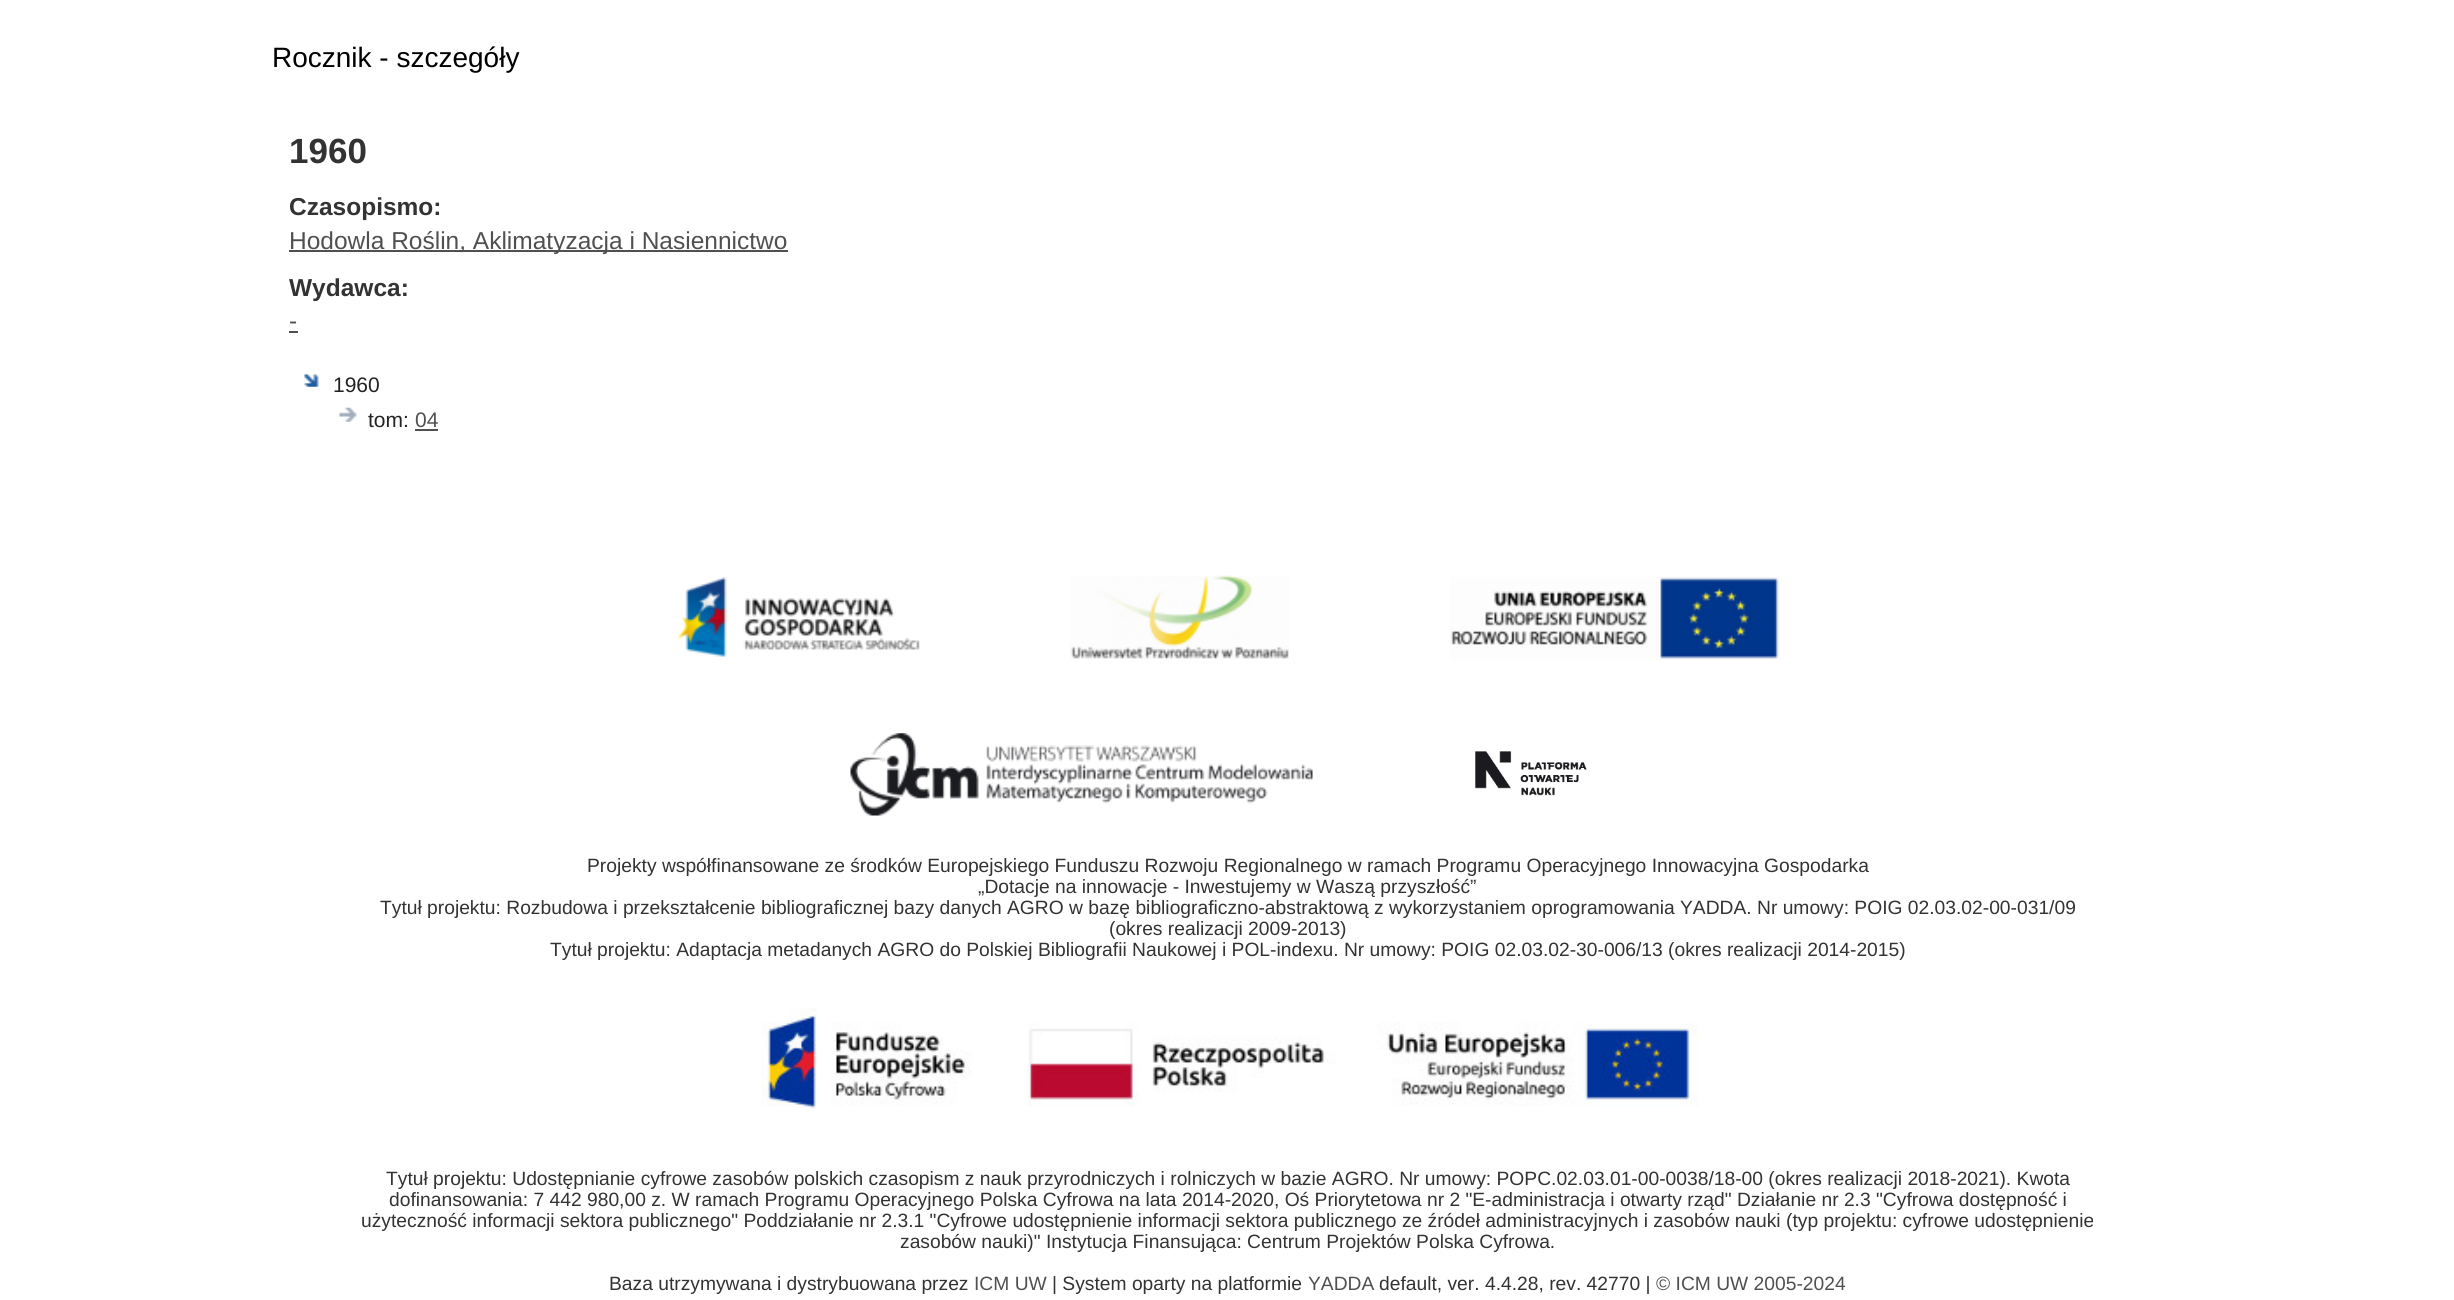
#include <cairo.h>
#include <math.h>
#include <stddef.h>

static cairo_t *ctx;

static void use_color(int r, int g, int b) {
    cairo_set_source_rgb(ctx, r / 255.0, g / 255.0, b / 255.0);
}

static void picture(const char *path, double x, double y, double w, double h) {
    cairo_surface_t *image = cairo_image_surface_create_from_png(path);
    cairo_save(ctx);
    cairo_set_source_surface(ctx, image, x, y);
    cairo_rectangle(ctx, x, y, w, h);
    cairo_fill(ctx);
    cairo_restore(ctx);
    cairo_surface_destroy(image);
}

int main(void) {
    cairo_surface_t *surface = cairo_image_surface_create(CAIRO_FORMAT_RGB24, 2454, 1300);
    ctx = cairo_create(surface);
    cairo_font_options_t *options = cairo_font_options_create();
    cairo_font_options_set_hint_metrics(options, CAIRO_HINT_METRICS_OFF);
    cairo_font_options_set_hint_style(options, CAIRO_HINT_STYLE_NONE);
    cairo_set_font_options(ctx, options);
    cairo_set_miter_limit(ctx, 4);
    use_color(255, 255, 255);
    cairo_paint(ctx);
    cairo_select_font_face(ctx, "Liberation Sans", CAIRO_FONT_SLANT_NORMAL, CAIRO_FONT_WEIGHT_NORMAL);
    cairo_set_font_size(ctx, 28);
    use_color(0, 0, 0);
    cairo_move_to(ctx, 272, 67);
    cairo_show_text(ctx, "Rocznik - szczegóły");
    cairo_select_font_face(ctx, "Liberation Sans", CAIRO_FONT_SLANT_NORMAL, CAIRO_FONT_WEIGHT_BOLD);
    cairo_set_font_size(ctx, 35);
    use_color(51, 51, 51);
    cairo_move_to(ctx, 289, 163);
    cairo_show_text(ctx, "1960");
    cairo_set_font_size(ctx, 24.5);
    cairo_move_to(ctx, 289, 215);
    cairo_show_text(ctx, "Czasopismo:");
    use_color(81, 80, 80);
    cairo_rectangle(ctx, 289, 250, 499, 2);
    cairo_fill(ctx);
    cairo_select_font_face(ctx, "Liberation Sans", CAIRO_FONT_SLANT_NORMAL, CAIRO_FONT_WEIGHT_NORMAL);
    cairo_move_to(ctx, 289, 249);
    cairo_show_text(ctx, "Hodowla Roślin, Aklimatyzacja i Nasiennictwo");
    cairo_select_font_face(ctx, "Liberation Sans", CAIRO_FONT_SLANT_NORMAL, CAIRO_FONT_WEIGHT_BOLD);
    use_color(51, 51, 51);
    cairo_move_to(ctx, 289, 296);
    cairo_show_text(ctx, "Wydawca:");
    cairo_select_font_face(ctx, "Liberation Sans", CAIRO_FONT_SLANT_NORMAL, CAIRO_FONT_WEIGHT_NORMAL);
    use_color(81, 80, 80);
    cairo_move_to(ctx, 289, 329);
    cairo_show_text(ctx, "-");
    cairo_rectangle(ctx, 289, 331, 9, 2);
    cairo_fill(ctx);
    picture("img1.png", 304, 374, 15, 13);
    cairo_set_font_size(ctx, 21);
    use_color(34, 34, 34);
    cairo_move_to(ctx, 333, 392);
    cairo_show_text(ctx, "1960");
    picture("img2.png", 339, 407, 18, 15);
    cairo_move_to(ctx, 368, 427);
    cairo_show_text(ctx, "tom:");
    use_color(81, 80, 80);
    cairo_move_to(ctx, 415, 427);
    cairo_show_text(ctx, "04");
    cairo_rectangle(ctx, 415, 429, 23, 2);
    cairo_fill(ctx);
    picture("img3.png", 677, 577, 243, 81);
    picture("img4.png", 1070, 575, 219, 84);
    picture("img5.png", 1450, 577, 329, 83);
    picture("img6.png", 850, 733, 463, 83);
    picture("img7.png", 1475, 751, 112, 45);
    cairo_set_font_size(ctx, 19.25);
    use_color(51, 51, 51);
    cairo_move_to(ctx, 587, 872);
    cairo_show_text(ctx, "Projekty współfinansowane ze środków Europejskiego Funduszu Rozwoju Regionalnego w ramach Programu Operacyjnego Innowacyjna Gospodarka");
    cairo_move_to(ctx, 978, 893);
    cairo_show_text(ctx, "„Dotacje na innowacje - Inwestujemy w Waszą przyszłość”");
    cairo_move_to(ctx, 380, 914);
    cairo_show_text(ctx, "Tytuł projektu: Rozbudowa i przekształcenie bibliograficznej bazy danych AGRO w bazę bibliograficzno-abstraktową z wykorzystaniem oprogramowania YADDA. Nr umowy: POIG 02.03.02-00-031/09");
    cairo_move_to(ctx, 1109, 935);
    cairo_show_text(ctx, "(okres realizacji 2009-2013)");
    cairo_move_to(ctx, 550, 956);
    cairo_show_text(ctx, "Tytuł projektu: Adaptacja metadanych AGRO do Polskiej Bibliografii Naukowej i POL-indexu. Nr umowy: POIG 02.03.02-30-006/13 (okres realizacji 2014-2015)");
    picture("img8.png", 761, 1008, 938, 101);
    cairo_move_to(ctx, 386, 1185);
    cairo_show_text(ctx, "Tytuł projektu: Udostępnianie cyfrowe zasobów polskich czasopism z nauk przyrodniczych i rolniczych w bazie AGRO. Nr umowy: POPC.02.03.01-00-0038/18-00 (okres realizacji 2018-2021). Kwota");
    cairo_move_to(ctx, 389, 1206);
    cairo_show_text(ctx, "dofinansowania: 7 442 980,00 z. W ramach Programu Operacyjnego Polska Cyfrowa na lata 2014-2020, Oś Priorytetowa nr 2 \"E-administracja i otwarty rząd\" Działanie nr 2.3 \"Cyfrowa dostępność i");
    cairo_move_to(ctx, 361, 1227);
    cairo_show_text(ctx, "użyteczność informacji sektora publicznego\" Poddziałanie nr 2.3.1 \"Cyfrowe udostępnienie informacji sektora publicznego ze źródeł administracyjnych i zasobów nauki (typ projektu: cyfrowe udostępnienie");
    cairo_move_to(ctx, 900, 1248);
    cairo_show_text(ctx, "zasobów nauki)\" Instytucja Finansująca: Centrum Projektów Polska Cyfrowa.");
    cairo_move_to(ctx, 609, 1290);
    cairo_show_text(ctx, "Baza utrzymywana i dystrybuowana przez");
    use_color(81, 80, 80);
    cairo_move_to(ctx, 974, 1290);
    cairo_show_text(ctx, "ICM UW");
    use_color(51, 51, 51);
    cairo_move_to(ctx, 1052, 1290);
    cairo_show_text(ctx, "| System oparty na platformie");
    use_color(81, 80, 80);
    cairo_move_to(ctx, 1308, 1290);
    cairo_show_text(ctx, "YADDA");
    use_color(51, 51, 51);
    cairo_move_to(ctx, 1379, 1290);
    cairo_show_text(ctx, "default, ver. 4.4.28, rev. 42770 |");
    use_color(81, 80, 80);
    cairo_move_to(ctx, 1656, 1290);
    cairo_show_text(ctx, "© ICM UW 2005-2024");
    cairo_surface_write_to_png(surface, "result.png");
    cairo_font_options_destroy(options);
    cairo_destroy(ctx);
    cairo_surface_destroy(surface);
    return 0;
}
